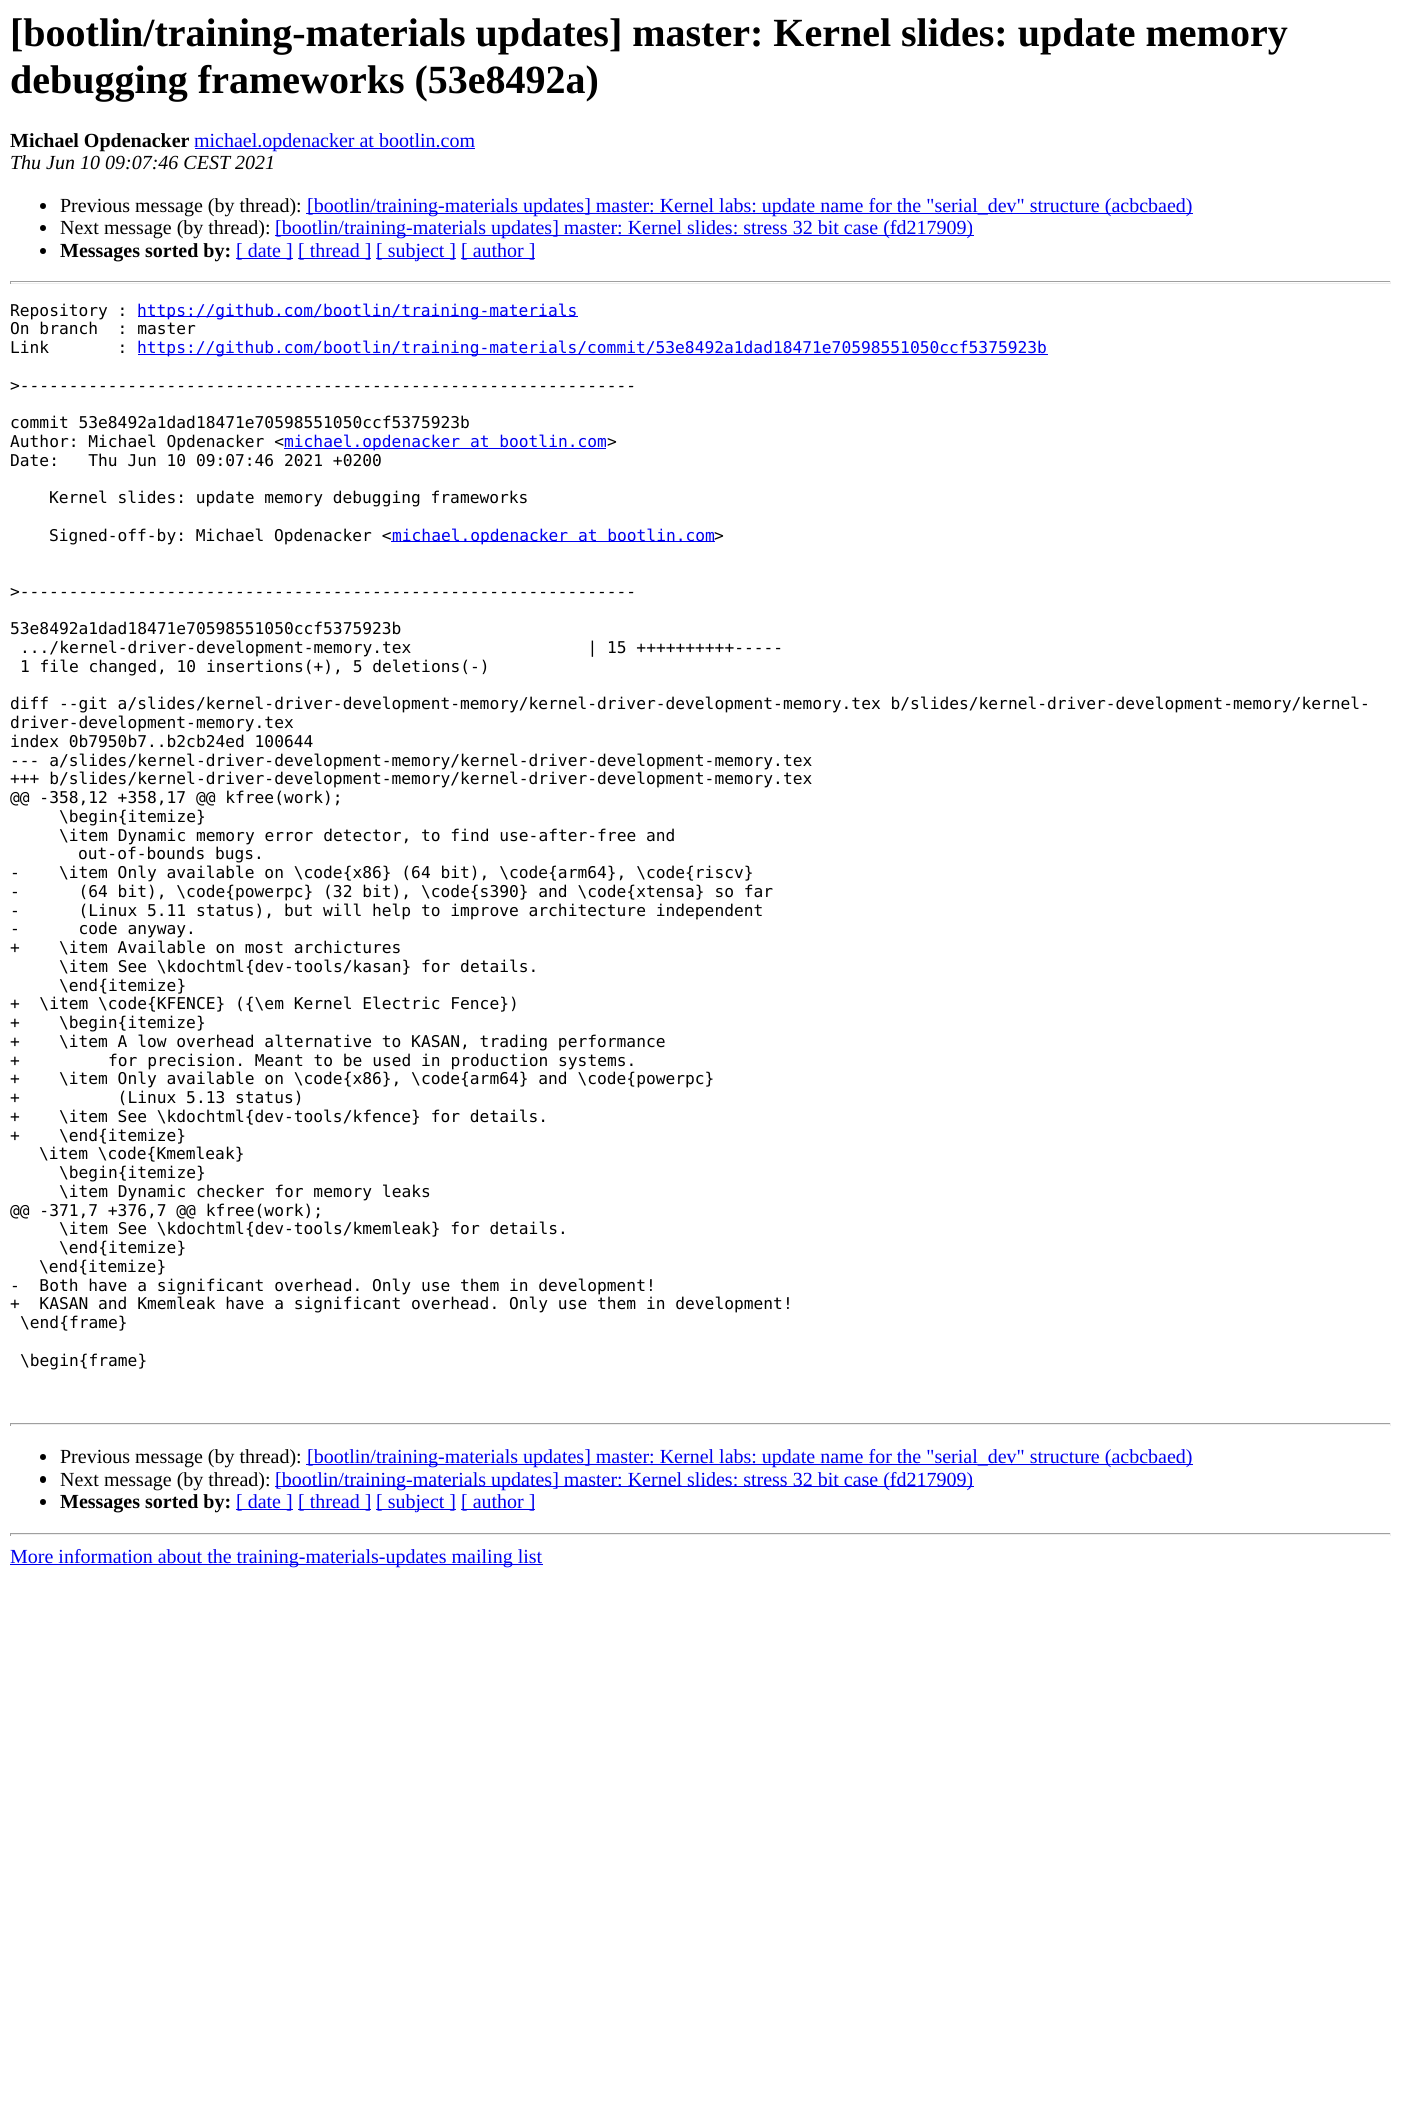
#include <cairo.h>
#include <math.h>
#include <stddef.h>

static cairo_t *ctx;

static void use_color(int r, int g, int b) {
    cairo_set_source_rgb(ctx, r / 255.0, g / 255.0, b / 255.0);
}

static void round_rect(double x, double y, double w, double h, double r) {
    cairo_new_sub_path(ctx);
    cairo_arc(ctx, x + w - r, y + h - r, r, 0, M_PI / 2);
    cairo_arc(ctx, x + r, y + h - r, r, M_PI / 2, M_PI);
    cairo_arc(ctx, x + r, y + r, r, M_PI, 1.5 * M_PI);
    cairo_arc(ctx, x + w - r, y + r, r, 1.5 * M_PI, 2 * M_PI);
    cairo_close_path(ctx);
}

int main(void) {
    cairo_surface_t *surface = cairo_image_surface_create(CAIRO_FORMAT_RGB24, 1401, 2111);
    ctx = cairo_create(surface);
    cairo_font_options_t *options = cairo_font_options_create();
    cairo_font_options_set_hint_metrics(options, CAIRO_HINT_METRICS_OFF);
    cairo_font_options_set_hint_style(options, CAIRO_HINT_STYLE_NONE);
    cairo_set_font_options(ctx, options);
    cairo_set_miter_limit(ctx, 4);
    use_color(255, 255, 255);
    cairo_paint(ctx);
    cairo_select_font_face(ctx, "Liberation Serif", CAIRO_FONT_SLANT_NORMAL, CAIRO_FONT_WEIGHT_BOLD);
    cairo_set_font_size(ctx, 40);
    use_color(0, 0, 0);
    cairo_move_to(ctx, 10, 46);
    cairo_show_text(ctx, "[bootlin/training-materials updates] master: Kernel slides: update memory");
    cairo_move_to(ctx, 10, 93);
    cairo_show_text(ctx, "debugging frameworks (53e8492a)");
    cairo_set_font_size(ctx, 20);
    cairo_move_to(ctx, 10, 147);
    cairo_show_text(ctx, "Michael Opdenacker");
    use_color(0, 0, 238);
    cairo_rectangle(ctx, 195, 148, 280, 1);
    cairo_fill(ctx);
    cairo_select_font_face(ctx, "Liberation Serif", CAIRO_FONT_SLANT_NORMAL, CAIRO_FONT_WEIGHT_NORMAL);
    cairo_move_to(ctx, 194, 147);
    cairo_show_text(ctx, "michael.opdenacker at bootlin.com");
    cairo_select_font_face(ctx, "Liberation Serif", CAIRO_FONT_SLANT_ITALIC, CAIRO_FONT_WEIGHT_NORMAL);
    use_color(0, 0, 0);
    cairo_move_to(ctx, 10, 169);
    cairo_show_text(ctx, "Thu Jun 10 09:07:46 CEST 2021");
    cairo_new_path(ctx);
    cairo_arc(ctx, 43, 206, 3, 0, 2 * M_PI);
    cairo_fill(ctx);
    cairo_select_font_face(ctx, "Liberation Serif", CAIRO_FONT_SLANT_NORMAL, CAIRO_FONT_WEIGHT_NORMAL);
    cairo_move_to(ctx, 60, 212);
    cairo_show_text(ctx, "Previous message (by thread):");
    use_color(0, 0, 238);
    cairo_rectangle(ctx, 306, 213, 887, 1);
    cairo_fill(ctx);
    cairo_move_to(ctx, 307, 212);
    cairo_show_text(ctx, "[bootlin/training-materials updates] master: Kernel labs: update name for the \"serial_dev\" structure (acbcbaed)");
    use_color(0, 0, 0);
    cairo_new_path(ctx);
    cairo_arc(ctx, 43, 228, 3, 0, 2 * M_PI);
    cairo_fill(ctx);
    cairo_move_to(ctx, 60, 234);
    cairo_show_text(ctx, "Next message (by thread):");
    use_color(0, 0, 238);
    cairo_rectangle(ctx, 275, 235, 699, 1);
    cairo_fill(ctx);
    cairo_move_to(ctx, 275, 234);
    cairo_show_text(ctx, "[bootlin/training-materials updates] master: Kernel slides: stress 32 bit case (fd217909)");
    use_color(0, 0, 0);
    cairo_new_path(ctx);
    cairo_arc(ctx, 43, 251, 3, 0, 2 * M_PI);
    cairo_fill(ctx);
    cairo_select_font_face(ctx, "Liberation Serif", CAIRO_FONT_SLANT_NORMAL, CAIRO_FONT_WEIGHT_BOLD);
    cairo_move_to(ctx, 60, 257);
    cairo_show_text(ctx, "Messages sorted by:");
    use_color(0, 0, 238);
    cairo_rectangle(ctx, 236, 258, 57, 1);
    cairo_fill(ctx);
    cairo_select_font_face(ctx, "Liberation Serif", CAIRO_FONT_SLANT_NORMAL, CAIRO_FONT_WEIGHT_NORMAL);
    cairo_move_to(ctx, 236, 257);
    cairo_show_text(ctx, "[ date ]");
    cairo_rectangle(ctx, 298, 258, 73, 1);
    cairo_fill(ctx);
    cairo_move_to(ctx, 298, 257);
    cairo_show_text(ctx, "[ thread ]");
    cairo_rectangle(ctx, 376, 258, 80, 1);
    cairo_fill(ctx);
    cairo_move_to(ctx, 376, 257);
    cairo_show_text(ctx, "[ subject ]");
    cairo_rectangle(ctx, 461, 258, 74, 1);
    cairo_fill(ctx);
    cairo_move_to(ctx, 461, 257);
    cairo_show_text(ctx, "[ author ]");
    use_color(159, 159, 159);
    cairo_rectangle(ctx, 10, 281, 1381, 1);
    cairo_fill(ctx);
    use_color(238, 238, 238);
    cairo_rectangle(ctx, 1390, 281, 1, 3);
    cairo_fill(ctx);
    cairo_rectangle(ctx, 10, 283, 1381, 1);
    cairo_fill(ctx);
    use_color(159, 159, 159);
    cairo_rectangle(ctx, 10, 281, 1, 3);
    cairo_fill(ctx);
    cairo_select_font_face(ctx, "DejaVu Sans Mono", CAIRO_FONT_SLANT_NORMAL, CAIRO_FONT_WEIGHT_NORMAL);
    cairo_set_font_size(ctx, 16.25);
    use_color(0, 0, 0);
    cairo_move_to(ctx, 10, 316);
    cairo_show_text(ctx, "Repository :");
    use_color(0, 0, 238);
    cairo_rectangle(ctx, 138, 316, 440, 1);
    cairo_fill(ctx);
    cairo_move_to(ctx, 137, 316);
    cairo_show_text(ctx, "https://github.com/bootlin/training-materials");
    use_color(0, 0, 0);
    cairo_move_to(ctx, 10, 334);
    cairo_show_text(ctx, "On branch  : master");
    cairo_move_to(ctx, 10, 353);
    cairo_show_text(ctx, "Link       :");
    use_color(0, 0, 238);
    cairo_rectangle(ctx, 138, 354, 910, 1);
    cairo_fill(ctx);
    cairo_move_to(ctx, 137, 353);
    cairo_show_text(ctx, "https://github.com/bootlin/training-materials/commit/53e8492a1dad18471e70598551050ccf5375923b");
    use_color(0, 0, 0);
    cairo_move_to(ctx, 10, 391);
    cairo_show_text(ctx, ">");
    cairo_select_font_face(ctx, "DejaVu Sans Mono", CAIRO_FONT_SLANT_ITALIC, CAIRO_FONT_WEIGHT_NORMAL);
    cairo_move_to(ctx, 20, 391);
    cairo_show_text(ctx, "---------------------------------------------------------------");
    cairo_select_font_face(ctx, "DejaVu Sans Mono", CAIRO_FONT_SLANT_NORMAL, CAIRO_FONT_WEIGHT_NORMAL);
    cairo_move_to(ctx, 10, 428);
    cairo_show_text(ctx, "commit 53e8492a1dad18471e70598551050ccf5375923b");
    cairo_move_to(ctx, 10, 447);
    cairo_show_text(ctx, "Author: Michael Opdenacker <");
    use_color(0, 0, 238);
    cairo_rectangle(ctx, 284, 448, 322, 1);
    cairo_fill(ctx);
    cairo_move_to(ctx, 284, 447);
    cairo_show_text(ctx, "michael.opdenacker at bootlin.com");
    use_color(0, 0, 0);
    cairo_move_to(ctx, 607, 447);
    cairo_show_text(ctx, ">");
    cairo_move_to(ctx, 10, 466);
    cairo_show_text(ctx, "Date:   Thu Jun 10 09:07:46 2021 +0200");
    cairo_move_to(ctx, 49, 503);
    cairo_show_text(ctx, "Kernel slides: update memory debugging frameworks");
    cairo_move_to(ctx, 49, 541);
    cairo_show_text(ctx, "Signed-off-by: Michael Opdenacker <");
    use_color(0, 0, 238);
    cairo_rectangle(ctx, 391, 541, 324, 1);
    cairo_fill(ctx);
    cairo_move_to(ctx, 392, 541);
    cairo_show_text(ctx, "michael.opdenacker at bootlin.com");
    use_color(0, 0, 0);
    cairo_move_to(ctx, 714, 541);
    cairo_show_text(ctx, ">");
    cairo_move_to(ctx, 10, 597);
    cairo_show_text(ctx, ">");
    cairo_select_font_face(ctx, "DejaVu Sans Mono", CAIRO_FONT_SLANT_ITALIC, CAIRO_FONT_WEIGHT_NORMAL);
    cairo_move_to(ctx, 20, 597);
    cairo_show_text(ctx, "---------------------------------------------------------------");
    cairo_select_font_face(ctx, "DejaVu Sans Mono", CAIRO_FONT_SLANT_NORMAL, CAIRO_FONT_WEIGHT_NORMAL);
    cairo_move_to(ctx, 10, 634);
    cairo_show_text(ctx, "53e8492a1dad18471e70598551050ccf5375923b");
    cairo_move_to(ctx, 20, 653);
    cairo_show_text(ctx, ".../kernel-driver-development-memory.tex                  | 15 ++++++++++-----");
    cairo_move_to(ctx, 20, 672);
    cairo_show_text(ctx, "1 file changed, 10 insertions(+), 5 deletions(-)");
    cairo_move_to(ctx, 10, 709);
    cairo_show_text(ctx, "diff --git a/slides/kernel-driver-development-memory/kernel-driver-development-memory.tex b/slides/kernel-driver-development-memory/kernel-");
    cairo_move_to(ctx, 10, 728);
    cairo_show_text(ctx, "driver-development-memory.tex");
    cairo_move_to(ctx, 10, 747);
    cairo_show_text(ctx, "index 0b7950b7..b2cb24ed 100644");
    cairo_move_to(ctx, 10, 766);
    cairo_show_text(ctx, "--- a/slides/kernel-driver-development-memory/kernel-driver-development-memory.tex");
    cairo_move_to(ctx, 10, 784);
    cairo_show_text(ctx, "+++ b/slides/kernel-driver-development-memory/kernel-driver-development-memory.tex");
    cairo_move_to(ctx, 10, 803);
    cairo_show_text(ctx, "@@ -358,12 +358,17 @@ kfree(work);");
    cairo_move_to(ctx, 59, 822);
    cairo_show_text(ctx, "\\begin{itemize}");
    cairo_move_to(ctx, 59, 841);
    cairo_show_text(ctx, "\\item Dynamic memory error detector, to find use-after-free and");
    cairo_move_to(ctx, 78, 859);
    cairo_show_text(ctx, "out-of-bounds bugs.");
    cairo_move_to(ctx, 10, 878);
    cairo_show_text(ctx, "-    \\item Only available on \\code{x86} (64 bit), \\code{arm64}, \\code{riscv}");
    cairo_move_to(ctx, 10, 897);
    cairo_show_text(ctx, "-      (64 bit), \\code{powerpc} (32 bit), \\code{s390} and \\code{xtensa} so far");
    cairo_move_to(ctx, 10, 916);
    cairo_show_text(ctx, "-      (Linux 5.11 status), but will help to improve architecture independent");
    cairo_move_to(ctx, 10, 934);
    cairo_show_text(ctx, "-      code anyway.");
    cairo_move_to(ctx, 10, 953);
    cairo_show_text(ctx, "+    \\item Available on most archictures");
    cairo_move_to(ctx, 59, 972);
    cairo_show_text(ctx, "\\item See \\kdochtml{dev-tools/kasan} for details.");
    cairo_move_to(ctx, 59, 991);
    cairo_show_text(ctx, "\\end{itemize}");
    cairo_move_to(ctx, 10, 1009);
    cairo_show_text(ctx, "+  \\item \\code{KFENCE} ({\\em Kernel Electric Fence})");
    cairo_move_to(ctx, 10, 1028);
    cairo_show_text(ctx, "+    \\begin{itemize}");
    cairo_move_to(ctx, 10, 1047);
    cairo_show_text(ctx, "+    \\item A low overhead alternative to KASAN, trading performance");
    cairo_move_to(ctx, 10, 1066);
    cairo_show_text(ctx, "+");
    cairo_move_to(ctx, 108, 1066);
    cairo_show_text(ctx, "for precision. Meant to be used in production systems.");
    cairo_move_to(ctx, 10, 1084);
    cairo_show_text(ctx, "+    \\item Only available on \\code{x86}, \\code{arm64} and \\code{powerpc}");
    cairo_move_to(ctx, 10, 1103);
    cairo_show_text(ctx, "+          (Linux 5.13 status)");
    cairo_move_to(ctx, 10, 1122);
    cairo_show_text(ctx, "+    \\item See \\kdochtml{dev-tools/kfence} for details.");
    cairo_move_to(ctx, 10, 1141);
    cairo_show_text(ctx, "+    \\end{itemize}");
    cairo_move_to(ctx, 39, 1159);
    cairo_show_text(ctx, "\\item \\code{Kmemleak}");
    cairo_move_to(ctx, 59, 1178);
    cairo_show_text(ctx, "\\begin{itemize}");
    cairo_move_to(ctx, 59, 1197);
    cairo_show_text(ctx, "\\item Dynamic checker for memory leaks");
    cairo_move_to(ctx, 10, 1216);
    cairo_show_text(ctx, "@@ -371,7 +376,7 @@ kfree(work);");
    cairo_move_to(ctx, 59, 1234);
    cairo_show_text(ctx, "\\item See \\kdochtml{dev-tools/kmemleak} for details.");
    cairo_move_to(ctx, 59, 1253);
    cairo_show_text(ctx, "\\end{itemize}");
    cairo_move_to(ctx, 39, 1272);
    cairo_show_text(ctx, "\\end{itemize}");
    cairo_move_to(ctx, 10, 1291);
    cairo_show_text(ctx, "-  Both have a significant overhead. Only use them in development!");
    cairo_move_to(ctx, 10, 1309);
    cairo_show_text(ctx, "+  KASAN and Kmemleak have a significant overhead. Only use them in development!");
    cairo_move_to(ctx, 20, 1328);
    cairo_show_text(ctx, "\\end{frame}");
    cairo_move_to(ctx, 20, 1366);
    cairo_show_text(ctx, "\\begin{frame}");
    use_color(159, 159, 159);
    cairo_rectangle(ctx, 10, 1423, 1381, 1);
    cairo_fill(ctx);
    use_color(238, 238, 238);
    cairo_rectangle(ctx, 1390, 1423, 1, 3);
    cairo_fill(ctx);
    cairo_rectangle(ctx, 10, 1424, 1381, 1);
    cairo_fill(ctx);
    use_color(159, 159, 159);
    cairo_rectangle(ctx, 10, 1423, 1, 3);
    cairo_fill(ctx);
    use_color(0, 0, 0);
    cairo_arc(ctx, 43, 1457, 3, 0, 2 * M_PI);
    cairo_fill(ctx);
    cairo_select_font_face(ctx, "Liberation Serif", CAIRO_FONT_SLANT_NORMAL, CAIRO_FONT_WEIGHT_NORMAL);
    cairo_set_font_size(ctx, 20);
    cairo_move_to(ctx, 60, 1463);
    cairo_show_text(ctx, "Previous message (by thread):");
    use_color(0, 0, 238);
    cairo_rectangle(ctx, 306, 1464, 887, 1);
    cairo_fill(ctx);
    cairo_move_to(ctx, 307, 1463);
    cairo_show_text(ctx, "[bootlin/training-materials updates] master: Kernel labs: update name for the \"serial_dev\" structure (acbcbaed)");
    use_color(0, 0, 0);
    round_rect(40, 1476, 6, 7, 3);
    cairo_fill(ctx);
    cairo_move_to(ctx, 60, 1486);
    cairo_show_text(ctx, "Next message (by thread):");
    use_color(0, 0, 238);
    cairo_rectangle(ctx, 275, 1486, 699, 1);
    cairo_fill(ctx);
    cairo_move_to(ctx, 275, 1486);
    cairo_show_text(ctx, "[bootlin/training-materials updates] master: Kernel slides: stress 32 bit case (fd217909)");
    use_color(0, 0, 0);
    cairo_new_path(ctx);
    cairo_arc(ctx, 43, 1502, 3, 0, 2 * M_PI);
    cairo_fill(ctx);
    cairo_select_font_face(ctx, "Liberation Serif", CAIRO_FONT_SLANT_NORMAL, CAIRO_FONT_WEIGHT_BOLD);
    cairo_move_to(ctx, 60, 1508);
    cairo_show_text(ctx, "Messages sorted by:");
    use_color(0, 0, 238);
    cairo_rectangle(ctx, 236, 1509, 57, 1);
    cairo_fill(ctx);
    cairo_select_font_face(ctx, "Liberation Serif", CAIRO_FONT_SLANT_NORMAL, CAIRO_FONT_WEIGHT_NORMAL);
    cairo_move_to(ctx, 236, 1508);
    cairo_show_text(ctx, "[ date ]");
    cairo_rectangle(ctx, 298, 1509, 73, 1);
    cairo_fill(ctx);
    cairo_move_to(ctx, 298, 1508);
    cairo_show_text(ctx, "[ thread ]");
    cairo_rectangle(ctx, 376, 1509, 80, 1);
    cairo_fill(ctx);
    cairo_move_to(ctx, 376, 1508);
    cairo_show_text(ctx, "[ subject ]");
    cairo_rectangle(ctx, 461, 1509, 74, 1);
    cairo_fill(ctx);
    cairo_move_to(ctx, 461, 1508);
    cairo_show_text(ctx, "[ author ]");
    use_color(159, 159, 159);
    cairo_rectangle(ctx, 10, 1533, 1381, 1);
    cairo_fill(ctx);
    use_color(238, 238, 238);
    cairo_rectangle(ctx, 1390, 1533, 1, 3);
    cairo_fill(ctx);
    cairo_rectangle(ctx, 10, 1534, 1381, 1);
    cairo_fill(ctx);
    use_color(159, 159, 159);
    cairo_rectangle(ctx, 10, 1533, 1, 3);
    cairo_fill(ctx);
    use_color(0, 0, 238);
    cairo_rectangle(ctx, 10, 1564, 533, 1);
    cairo_fill(ctx);
    cairo_move_to(ctx, 10, 1563);
    cairo_show_text(ctx, "More information about the training-materials-updates mailing list");
    cairo_surface_write_to_png(surface, "result.png");
    cairo_font_options_destroy(options);
    cairo_destroy(ctx);
    cairo_surface_destroy(surface);
    return 0;
}
